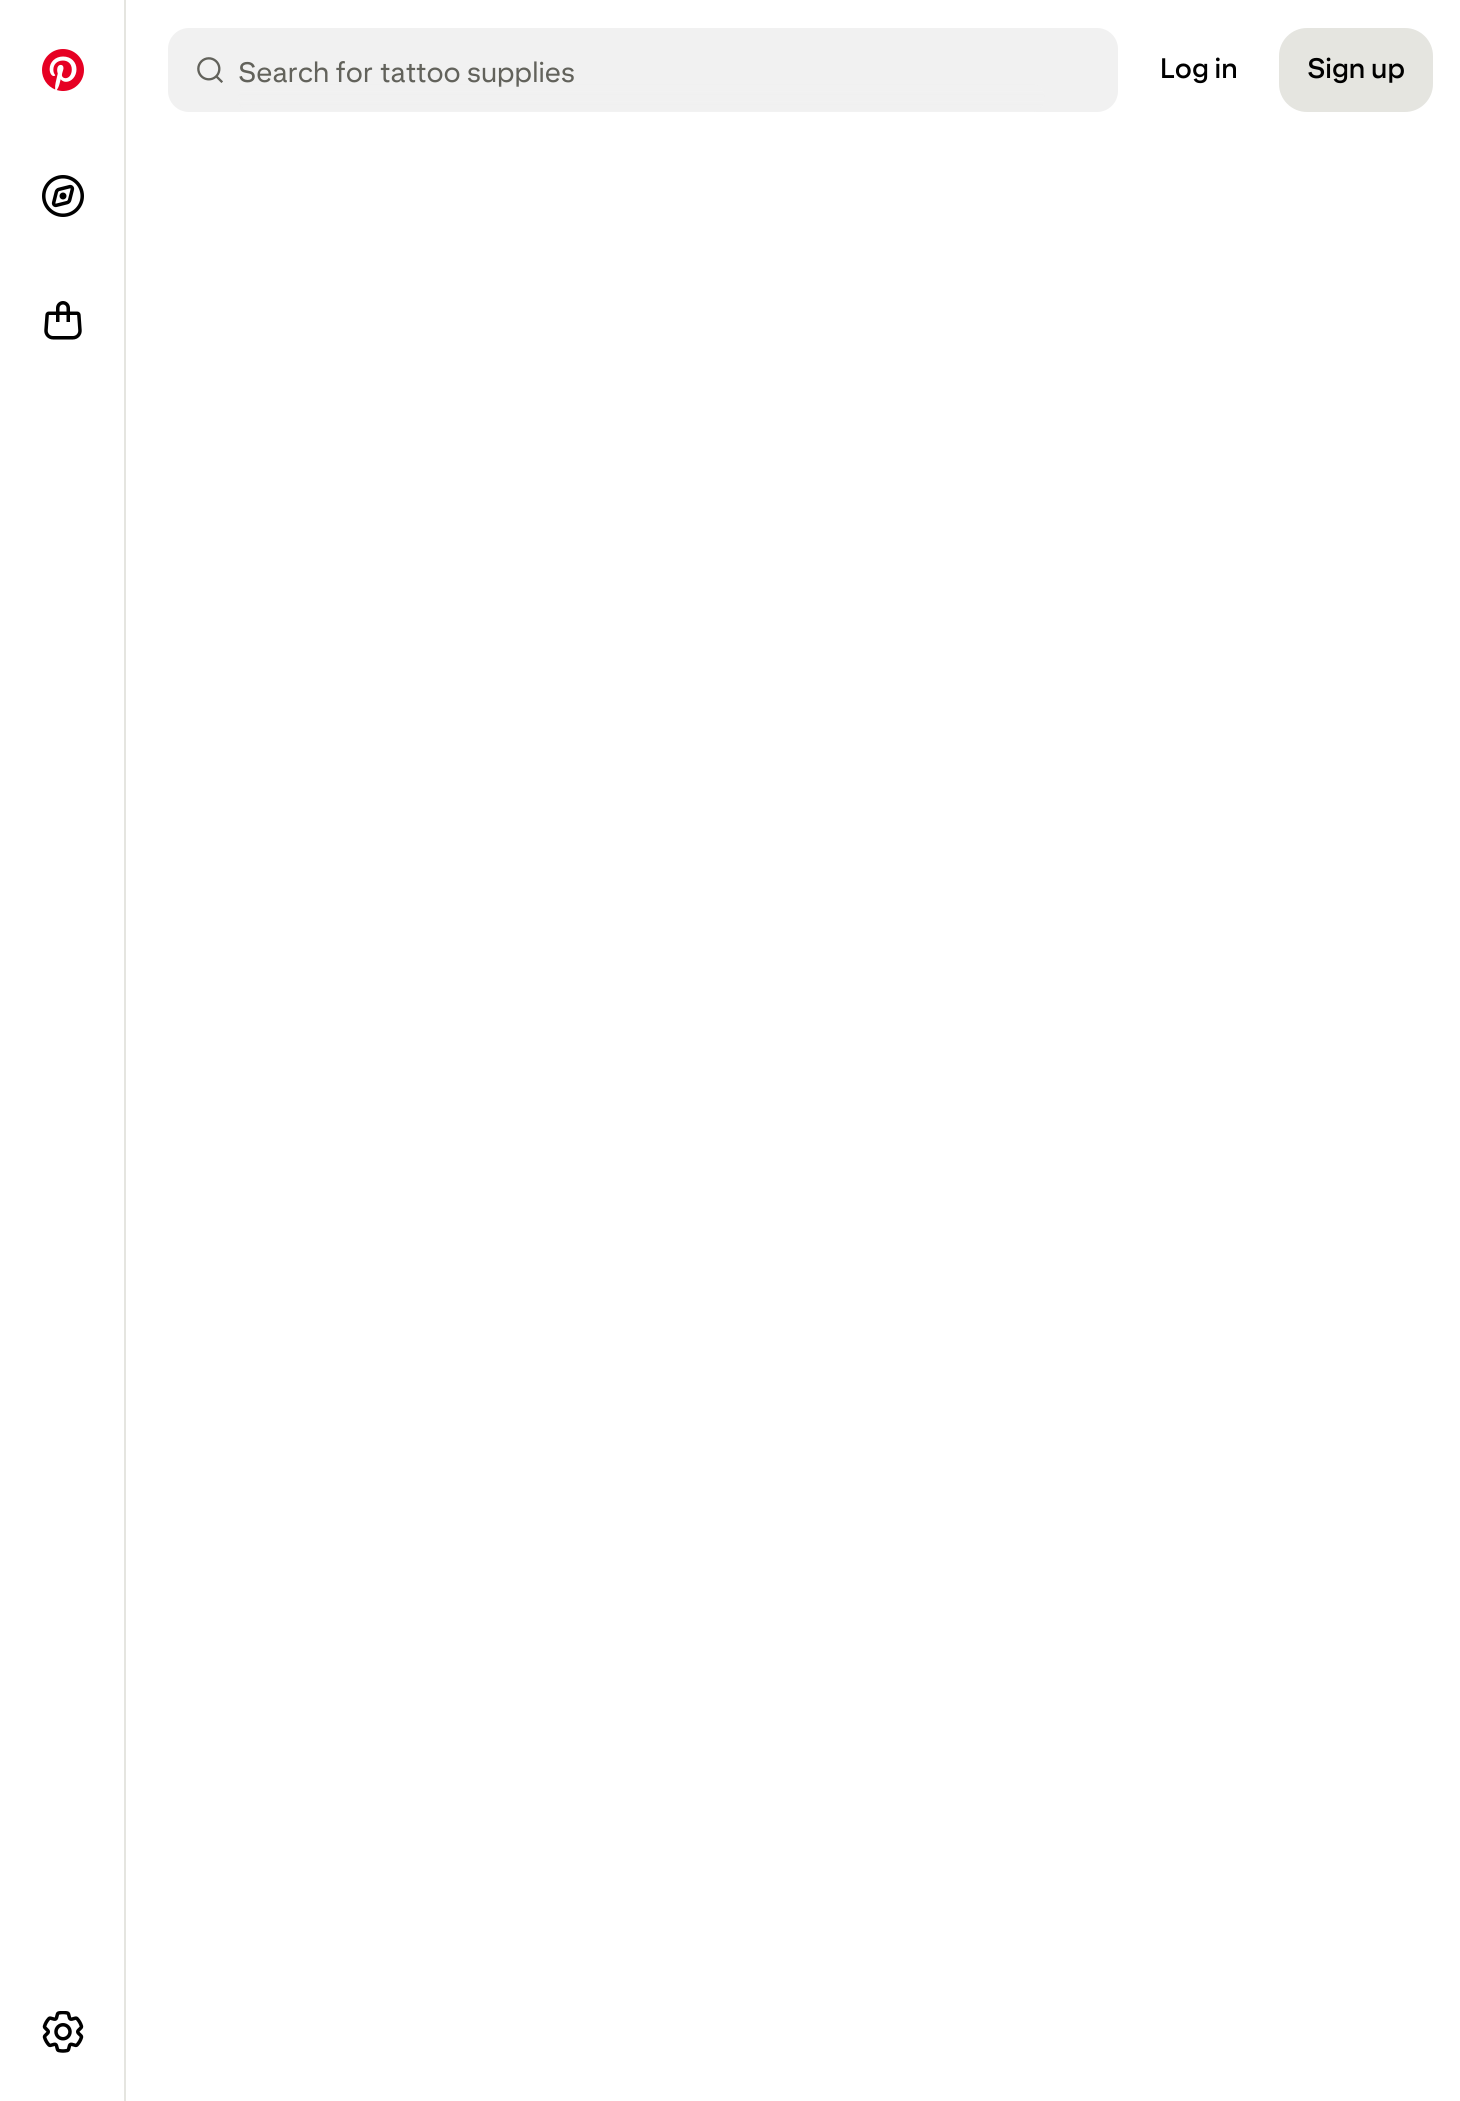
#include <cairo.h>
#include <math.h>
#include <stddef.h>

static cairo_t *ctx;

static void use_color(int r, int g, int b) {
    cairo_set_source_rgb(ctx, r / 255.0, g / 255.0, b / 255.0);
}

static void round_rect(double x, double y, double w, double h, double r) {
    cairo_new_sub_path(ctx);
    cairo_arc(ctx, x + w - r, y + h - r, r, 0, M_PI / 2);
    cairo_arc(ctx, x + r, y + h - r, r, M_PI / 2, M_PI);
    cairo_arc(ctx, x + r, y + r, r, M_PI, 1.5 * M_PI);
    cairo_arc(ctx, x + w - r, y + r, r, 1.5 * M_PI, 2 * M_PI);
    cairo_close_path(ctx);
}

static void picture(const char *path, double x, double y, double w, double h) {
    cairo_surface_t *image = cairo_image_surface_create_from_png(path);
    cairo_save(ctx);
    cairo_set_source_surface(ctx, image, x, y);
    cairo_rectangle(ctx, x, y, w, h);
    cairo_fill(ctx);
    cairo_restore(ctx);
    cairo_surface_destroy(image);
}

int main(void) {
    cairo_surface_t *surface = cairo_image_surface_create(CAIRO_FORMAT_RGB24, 1460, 2101);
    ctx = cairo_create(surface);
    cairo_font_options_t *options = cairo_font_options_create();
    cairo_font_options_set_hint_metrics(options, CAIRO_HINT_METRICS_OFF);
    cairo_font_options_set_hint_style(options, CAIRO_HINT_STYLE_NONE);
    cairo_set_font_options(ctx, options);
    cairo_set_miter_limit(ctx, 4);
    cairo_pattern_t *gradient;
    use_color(255, 255, 255);
    cairo_paint(ctx);
    use_color(229, 229, 224);
    cairo_rectangle(ctx, 124, 0, 2, 2101);
    cairo_fill(ctx);
    picture("img1.png", 42, 49, 42, 42);
    picture("img2.png", 42, 175, 42, 42);
    picture("img3.png", 44, 301, 38, 39);
    picture("img4.png", 42, 2011, 42, 42);
    use_color(241, 241, 241);
    round_rect(168, 28, 950, 84, 21);
    cairo_fill(ctx);
    picture("img5.png", 197, 57, 26, 26);
    cairo_select_font_face(ctx, "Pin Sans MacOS", CAIRO_FONT_SLANT_NORMAL, CAIRO_FONT_WEIGHT_NORMAL);
    cairo_set_font_size(ctx, 28);
    use_color(98, 98, 91);
    cairo_move_to(ctx, 238, 82);
    cairo_show_text(ctx, "Search for");
    cairo_move_to(ctx, 380, 82);
    cairo_show_text(ctx, "tattoo supplies");
    gradient = cairo_pattern_create_linear(641, 84, 641, 112);
    cairo_pattern_add_color_stop_rgba(gradient, 0, 0.945, 0.945, 0.945, 0);
    cairo_pattern_add_color_stop_rgba(gradient, 1, 0.945, 0.945, 0.945, 1);
    cairo_set_source(ctx, gradient);
    cairo_pattern_destroy(gradient);
    round_rect(238, 84, 807, 28, 14);
    cairo_fill(ctx);
    cairo_select_font_face(ctx, "Pin Sans MacOS Medium", CAIRO_FONT_SLANT_NORMAL, CAIRO_FONT_WEIGHT_NORMAL);
    use_color(0, 0, 0);
    cairo_move_to(ctx, 1160, 78);
    cairo_show_text(ctx, "Log in");
    use_color(229, 229, 224);
    round_rect(1279, 28, 154, 84, 28);
    cairo_fill(ctx);
    use_color(0, 0, 0);
    cairo_move_to(ctx, 1307, 78);
    cairo_show_text(ctx, "Sign up");
    cairo_surface_write_to_png(surface, "result.png");
    cairo_font_options_destroy(options);
    cairo_destroy(ctx);
    cairo_surface_destroy(surface);
    return 0;
}
